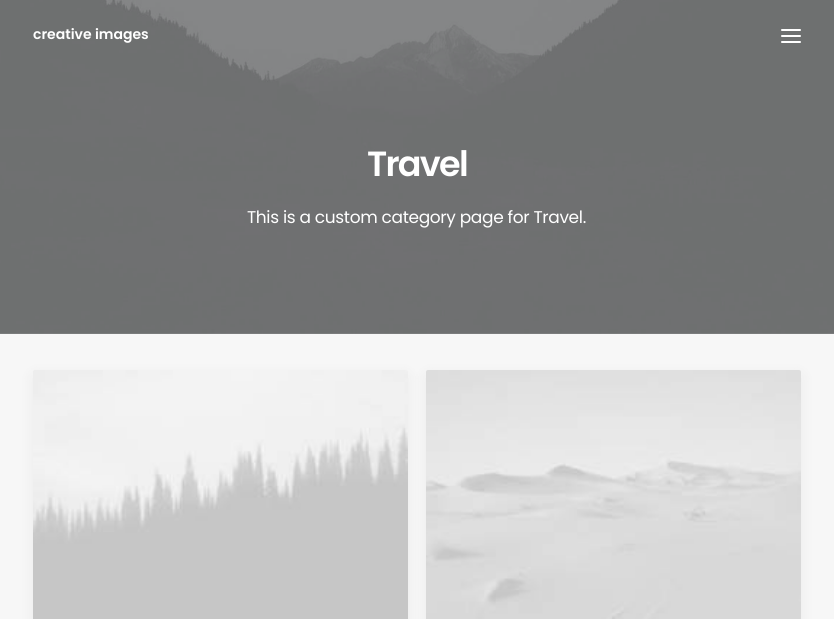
#include <cairo.h>
#include <math.h>
#include <stddef.h>

static cairo_t *ctx;

static void use_color(int r, int g, int b) {
    cairo_set_source_rgb(ctx, r / 255.0, g / 255.0, b / 255.0);
}

static void spaced_text(double x, double y, const char *s, double letter, double word) {
    cairo_move_to(ctx, x, y);
    while (*s) {
        char ch[5] = {0};
        int n = 0;
        do ch[n++] = *s++; while ((*s & 0xC0) == 0x80);
        cairo_show_text(ctx, ch);
        cairo_rel_move_to(ctx, letter + word * (*ch == ' '), 0);
    }
}

static void round_rect(double x, double y, double w, double h, double r) {
    cairo_new_sub_path(ctx);
    cairo_arc(ctx, x + w - r, y + h - r, r, 0, M_PI / 2);
    cairo_arc(ctx, x + r, y + h - r, r, M_PI / 2, M_PI);
    cairo_arc(ctx, x + r, y + r, r, M_PI, 1.5 * M_PI);
    cairo_arc(ctx, x + w - r, y + r, r, 1.5 * M_PI, 2 * M_PI);
    cairo_close_path(ctx);
}

static void shadow(double x, double y, double w, double h, double r, double blur, double alpha) {
    cairo_push_group_with_content(ctx, CAIRO_CONTENT_ALPHA);
    cairo_set_operator(ctx, CAIRO_OPERATOR_SOURCE);
    for (int i = 15; i >= -15 && fmin(w, h) + blur * i / 3 > 0; i -= 2) {
        double e = blur * i / 6;
        cairo_set_source_rgba(ctx, 0, 0, 0, alpha * erfc((i - 1) / 8.5) / 2);
        round_rect(x - e, y - e, w + 2 * e, h + 2 * e, fmax(0, fmin(r + e + blur * .6, fmin(w, h) / 2 + e)));
        cairo_fill(ctx);
    }
    cairo_pattern_t *soft = cairo_pop_group(ctx);
    cairo_mask(ctx, soft);
    cairo_pattern_destroy(soft);
}

static void picture(const char *path, double x, double y, double w, double h) {
    cairo_surface_t *image = cairo_image_surface_create_from_png(path);
    cairo_save(ctx);
    cairo_set_source_surface(ctx, image, x, y);
    cairo_rectangle(ctx, x, y, w, h);
    cairo_fill(ctx);
    cairo_restore(ctx);
    cairo_surface_destroy(image);
}

int main(void) {
    cairo_surface_t *surface = cairo_image_surface_create(CAIRO_FORMAT_RGB24, 834, 619);
    ctx = cairo_create(surface);
    cairo_font_options_t *options = cairo_font_options_create();
    cairo_font_options_set_hint_metrics(options, CAIRO_HINT_METRICS_OFF);
    cairo_font_options_set_hint_style(options, CAIRO_HINT_STYLE_NONE);
    cairo_set_font_options(ctx, options);
    cairo_set_miter_limit(ctx, 4);
    use_color(255, 255, 255);
    cairo_paint(ctx);
    picture("img1.png", 0, 0, 834, 334);
    cairo_select_font_face(ctx, "Poppins SemiBold", CAIRO_FONT_SLANT_NORMAL, CAIRO_FONT_WEIGHT_NORMAL);
    cairo_set_font_size(ctx, 14);
    use_color(255, 255, 255);
    cairo_move_to(ctx, 33, 39);
    cairo_show_text(ctx, "creative images");
    round_rect(781, 35, 20, 2, 1);
    cairo_fill(ctx);
    round_rect(781, 29, 20, 2, 1);
    cairo_fill(ctx);
    round_rect(781, 41, 20, 2, 1);
    cairo_fill(ctx);
    cairo_set_font_size(ctx, 35);
    spaced_text(367, 176, "Travel", -1.75, 0);
    cairo_select_font_face(ctx, "Poppins", CAIRO_FONT_SLANT_NORMAL, CAIRO_FONT_WEIGHT_NORMAL);
    cairo_set_font_size(ctx, 17);
    spaced_text(247, 223, "This is a custom category page for Travel.", -0.35, 0);
    use_color(247, 247, 247);
    cairo_rectangle(ctx, 0, 334, 834, 285);
    cairo_fill(ctx);
    use_color(0, 0, 0);
    shadow(33, 375, 375, 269, 2, 7.5, 0.05);
    picture("img2.png", 33, 370, 375, 249);
    shadow(426, 375, 375, 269, 2, 7.5, 0.05);
    picture("img3.png", 426, 370, 375, 249);
    cairo_surface_write_to_png(surface, "result.png");
    cairo_font_options_destroy(options);
    cairo_destroy(ctx);
    cairo_surface_destroy(surface);
    return 0;
}
